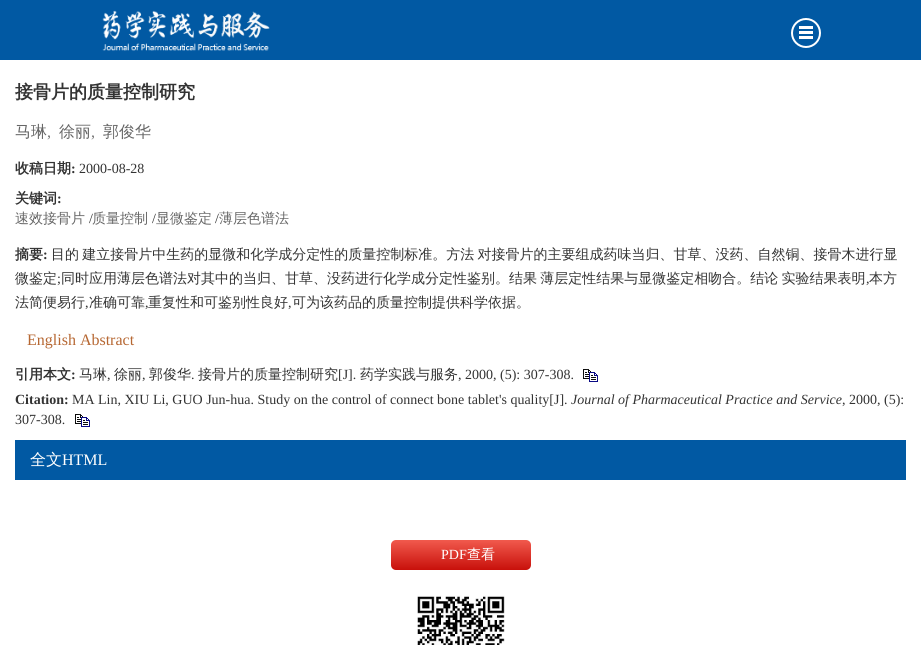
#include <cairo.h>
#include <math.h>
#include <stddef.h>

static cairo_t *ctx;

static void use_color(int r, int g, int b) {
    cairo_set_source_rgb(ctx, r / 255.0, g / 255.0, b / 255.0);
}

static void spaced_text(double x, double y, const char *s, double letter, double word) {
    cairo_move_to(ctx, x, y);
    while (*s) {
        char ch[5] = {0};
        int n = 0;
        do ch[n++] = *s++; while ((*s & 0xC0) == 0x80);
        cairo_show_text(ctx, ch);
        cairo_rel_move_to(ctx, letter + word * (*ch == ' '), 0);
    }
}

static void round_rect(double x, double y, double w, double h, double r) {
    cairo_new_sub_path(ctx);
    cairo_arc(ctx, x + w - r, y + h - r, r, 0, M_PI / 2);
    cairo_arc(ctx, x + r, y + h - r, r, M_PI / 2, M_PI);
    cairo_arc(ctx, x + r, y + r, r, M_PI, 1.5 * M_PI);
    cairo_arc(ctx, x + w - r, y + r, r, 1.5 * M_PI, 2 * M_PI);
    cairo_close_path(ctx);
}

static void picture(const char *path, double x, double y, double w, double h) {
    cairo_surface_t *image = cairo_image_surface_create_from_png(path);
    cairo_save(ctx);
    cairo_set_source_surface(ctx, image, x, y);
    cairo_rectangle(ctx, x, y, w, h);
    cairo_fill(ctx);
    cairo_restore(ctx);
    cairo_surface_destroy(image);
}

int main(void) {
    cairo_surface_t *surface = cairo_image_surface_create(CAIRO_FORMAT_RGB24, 921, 645);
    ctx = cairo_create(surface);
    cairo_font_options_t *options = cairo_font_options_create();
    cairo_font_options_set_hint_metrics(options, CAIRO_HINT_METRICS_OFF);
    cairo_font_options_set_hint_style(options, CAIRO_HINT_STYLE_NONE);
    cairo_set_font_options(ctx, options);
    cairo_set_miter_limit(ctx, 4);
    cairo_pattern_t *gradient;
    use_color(255, 255, 255);
    cairo_paint(ctx);
    use_color(1, 89, 163);
    cairo_rectangle(ctx, 0, 0, 921, 60);
    cairo_fill(ctx);
    picture("img1.png", 102, 10, 168, 41);
    cairo_arc(ctx, 806, 33, 14, 0, 2 * M_PI);
    use_color(255, 255, 255);
    cairo_stroke(ctx);
    cairo_rectangle(ctx, 799, 26, 14, 3);
    cairo_fill(ctx);
    cairo_rectangle(ctx, 799, 31, 14, 3);
    cairo_fill(ctx);
    cairo_rectangle(ctx, 799, 36, 14, 3);
    cairo_fill(ctx);
    cairo_select_font_face(ctx, "WenQuanYi Zen Hei", CAIRO_FONT_SLANT_NORMAL, CAIRO_FONT_WEIGHT_BOLD);
    cairo_set_font_size(ctx, 18);
    use_color(51, 51, 51);
    cairo_move_to(ctx, 15, 98);
    cairo_show_text(ctx, "接骨片的质量控制研究");
    cairo_select_font_face(ctx, "WenQuanYi Zen Hei Medium", CAIRO_FONT_SLANT_NORMAL, CAIRO_FONT_WEIGHT_NORMAL);
    cairo_set_font_size(ctx, 16);
    use_color(102, 102, 102);
    cairo_move_to(ctx, 15, 137);
    cairo_show_text(ctx, "马琳");
    cairo_select_font_face(ctx, "Liberation Serif", CAIRO_FONT_SLANT_NORMAL, CAIRO_FONT_WEIGHT_NORMAL);
    use_color(119, 119, 119);
    cairo_move_to(ctx, 47, 137);
    cairo_show_text(ctx, ",");
    cairo_select_font_face(ctx, "WenQuanYi Zen Hei Medium", CAIRO_FONT_SLANT_NORMAL, CAIRO_FONT_WEIGHT_NORMAL);
    use_color(102, 102, 102);
    cairo_move_to(ctx, 59, 137);
    cairo_show_text(ctx, "徐丽");
    cairo_select_font_face(ctx, "Liberation Serif", CAIRO_FONT_SLANT_NORMAL, CAIRO_FONT_WEIGHT_NORMAL);
    use_color(119, 119, 119);
    cairo_move_to(ctx, 91, 137);
    cairo_show_text(ctx, ",");
    cairo_select_font_face(ctx, "WenQuanYi Zen Hei Medium", CAIRO_FONT_SLANT_NORMAL, CAIRO_FONT_WEIGHT_NORMAL);
    use_color(102, 102, 102);
    cairo_move_to(ctx, 103, 137);
    cairo_show_text(ctx, "郭俊华");
    cairo_select_font_face(ctx, "WenQuanYi Zen Hei", CAIRO_FONT_SLANT_NORMAL, CAIRO_FONT_WEIGHT_BOLD);
    cairo_set_font_size(ctx, 14);
    use_color(51, 51, 51);
    cairo_move_to(ctx, 15, 173);
    cairo_show_text(ctx, "收稿日期");
    cairo_select_font_face(ctx, "Liberation Serif", CAIRO_FONT_SLANT_NORMAL, CAIRO_FONT_WEIGHT_BOLD);
    cairo_move_to(ctx, 71, 173);
    cairo_show_text(ctx, ":");
    cairo_select_font_face(ctx, "Liberation Serif", CAIRO_FONT_SLANT_NORMAL, CAIRO_FONT_WEIGHT_NORMAL);
    cairo_move_to(ctx, 79, 173);
    cairo_show_text(ctx, "2000-08-28");
    cairo_select_font_face(ctx, "WenQuanYi Zen Hei", CAIRO_FONT_SLANT_NORMAL, CAIRO_FONT_WEIGHT_BOLD);
    cairo_move_to(ctx, 15, 203);
    cairo_show_text(ctx, "关键词");
    cairo_select_font_face(ctx, "Liberation Serif", CAIRO_FONT_SLANT_NORMAL, CAIRO_FONT_WEIGHT_BOLD);
    cairo_move_to(ctx, 57, 203);
    cairo_show_text(ctx, ":");
    cairo_select_font_face(ctx, "WenQuanYi Zen Hei Medium", CAIRO_FONT_SLANT_NORMAL, CAIRO_FONT_WEIGHT_NORMAL);
    use_color(102, 102, 102);
    cairo_move_to(ctx, 15, 223);
    cairo_show_text(ctx, "速效接骨片");
    cairo_select_font_face(ctx, "Liberation Serif", CAIRO_FONT_SLANT_NORMAL, CAIRO_FONT_WEIGHT_NORMAL);
    use_color(51, 51, 51);
    cairo_move_to(ctx, 89, 223);
    cairo_show_text(ctx, "/");
    cairo_select_font_face(ctx, "WenQuanYi Zen Hei Medium", CAIRO_FONT_SLANT_NORMAL, CAIRO_FONT_WEIGHT_NORMAL);
    use_color(102, 102, 102);
    cairo_move_to(ctx, 92, 223);
    cairo_show_text(ctx, "质量控制");
    cairo_select_font_face(ctx, "Liberation Serif", CAIRO_FONT_SLANT_NORMAL, CAIRO_FONT_WEIGHT_NORMAL);
    use_color(51, 51, 51);
    cairo_move_to(ctx, 152, 223);
    cairo_show_text(ctx, "/");
    cairo_select_font_face(ctx, "WenQuanYi Zen Hei Medium", CAIRO_FONT_SLANT_NORMAL, CAIRO_FONT_WEIGHT_NORMAL);
    use_color(102, 102, 102);
    cairo_move_to(ctx, 156, 223);
    cairo_show_text(ctx, "显微鉴定");
    cairo_select_font_face(ctx, "Liberation Serif", CAIRO_FONT_SLANT_NORMAL, CAIRO_FONT_WEIGHT_NORMAL);
    use_color(51, 51, 51);
    cairo_move_to(ctx, 215, 223);
    cairo_show_text(ctx, "/");
    cairo_select_font_face(ctx, "WenQuanYi Zen Hei Medium", CAIRO_FONT_SLANT_NORMAL, CAIRO_FONT_WEIGHT_NORMAL);
    use_color(102, 102, 102);
    cairo_move_to(ctx, 219, 223);
    cairo_show_text(ctx, "薄层色谱法");
    cairo_select_font_face(ctx, "WenQuanYi Zen Hei", CAIRO_FONT_SLANT_NORMAL, CAIRO_FONT_WEIGHT_BOLD);
    use_color(51, 51, 51);
    cairo_move_to(ctx, 15, 259);
    cairo_show_text(ctx, "摘要");
    cairo_select_font_face(ctx, "Liberation Serif", CAIRO_FONT_SLANT_NORMAL, CAIRO_FONT_WEIGHT_BOLD);
    cairo_move_to(ctx, 43, 259);
    cairo_show_text(ctx, ":");
    cairo_select_font_face(ctx, "WenQuanYi Zen Hei Medium", CAIRO_FONT_SLANT_NORMAL, CAIRO_FONT_WEIGHT_NORMAL);
    spaced_text(51, 259, "目的 建立接骨片中生药的显微和化学成分定性的质量控制标准。方法 对接骨片的主要组成药味当归、甘草、没药、自然铜、接骨木进行显", 0, -1);
    cairo_move_to(ctx, 15, 283);
    cairo_show_text(ctx, "微鉴定");
    cairo_select_font_face(ctx, "Liberation Serif", CAIRO_FONT_SLANT_NORMAL, CAIRO_FONT_WEIGHT_NORMAL);
    cairo_move_to(ctx, 57, 283);
    cairo_show_text(ctx, ";");
    cairo_select_font_face(ctx, "WenQuanYi Zen Hei Medium", CAIRO_FONT_SLANT_NORMAL, CAIRO_FONT_WEIGHT_NORMAL);
    spaced_text(61, 283, "同时应用薄层色谱法对其中的当归、甘草、没药进行化学成分定性鉴别。结果 薄层定性结果与显微鉴定相吻合。结论 实验结果表明", 0, -1);
    cairo_select_font_face(ctx, "Liberation Serif", CAIRO_FONT_SLANT_NORMAL, CAIRO_FONT_WEIGHT_NORMAL);
    cairo_move_to(ctx, 866, 283);
    cairo_show_text(ctx, ",");
    cairo_select_font_face(ctx, "WenQuanYi Zen Hei Medium", CAIRO_FONT_SLANT_NORMAL, CAIRO_FONT_WEIGHT_NORMAL);
    cairo_move_to(ctx, 869, 283);
    cairo_show_text(ctx, "本方");
    cairo_move_to(ctx, 15, 307);
    cairo_show_text(ctx, "法简便易行");
    cairo_select_font_face(ctx, "Liberation Serif", CAIRO_FONT_SLANT_NORMAL, CAIRO_FONT_WEIGHT_NORMAL);
    cairo_move_to(ctx, 85, 307);
    cairo_show_text(ctx, ",");
    cairo_select_font_face(ctx, "WenQuanYi Zen Hei Medium", CAIRO_FONT_SLANT_NORMAL, CAIRO_FONT_WEIGHT_NORMAL);
    cairo_move_to(ctx, 89, 307);
    cairo_show_text(ctx, "准确可靠");
    cairo_select_font_face(ctx, "Liberation Serif", CAIRO_FONT_SLANT_NORMAL, CAIRO_FONT_WEIGHT_NORMAL);
    cairo_move_to(ctx, 145, 307);
    cairo_show_text(ctx, ",");
    cairo_select_font_face(ctx, "WenQuanYi Zen Hei Medium", CAIRO_FONT_SLANT_NORMAL, CAIRO_FONT_WEIGHT_NORMAL);
    cairo_move_to(ctx, 148, 307);
    cairo_show_text(ctx, "重复性和可鉴别性良好");
    cairo_select_font_face(ctx, "Liberation Serif", CAIRO_FONT_SLANT_NORMAL, CAIRO_FONT_WEIGHT_NORMAL);
    cairo_move_to(ctx, 288, 307);
    cairo_show_text(ctx, ",");
    cairo_select_font_face(ctx, "WenQuanYi Zen Hei Medium", CAIRO_FONT_SLANT_NORMAL, CAIRO_FONT_WEIGHT_NORMAL);
    cairo_move_to(ctx, 292, 307);
    cairo_show_text(ctx, "可为该药品的质量控制提供科学依据。");
    cairo_select_font_face(ctx, "Liberation Serif", CAIRO_FONT_SLANT_NORMAL, CAIRO_FONT_WEIGHT_NORMAL);
    cairo_set_font_size(ctx, 16);
    use_color(182, 103, 50);
    cairo_move_to(ctx, 27, 345);
    cairo_show_text(ctx, "English Abstract");
    cairo_select_font_face(ctx, "WenQuanYi Zen Hei", CAIRO_FONT_SLANT_NORMAL, CAIRO_FONT_WEIGHT_BOLD);
    cairo_set_font_size(ctx, 14);
    use_color(51, 51, 51);
    cairo_move_to(ctx, 15, 379);
    cairo_show_text(ctx, "引用本文");
    cairo_select_font_face(ctx, "Liberation Serif", CAIRO_FONT_SLANT_NORMAL, CAIRO_FONT_WEIGHT_BOLD);
    cairo_move_to(ctx, 71, 379);
    cairo_show_text(ctx, ":");
    cairo_select_font_face(ctx, "WenQuanYi Zen Hei Medium", CAIRO_FONT_SLANT_NORMAL, CAIRO_FONT_WEIGHT_NORMAL);
    cairo_move_to(ctx, 79, 379);
    cairo_show_text(ctx, "马琳");
    cairo_select_font_face(ctx, "Liberation Serif", CAIRO_FONT_SLANT_NORMAL, CAIRO_FONT_WEIGHT_NORMAL);
    cairo_move_to(ctx, 107, 379);
    cairo_show_text(ctx, ",");
    cairo_select_font_face(ctx, "WenQuanYi Zen Hei Medium", CAIRO_FONT_SLANT_NORMAL, CAIRO_FONT_WEIGHT_NORMAL);
    cairo_move_to(ctx, 114, 379);
    cairo_show_text(ctx, "徐丽");
    cairo_select_font_face(ctx, "Liberation Serif", CAIRO_FONT_SLANT_NORMAL, CAIRO_FONT_WEIGHT_NORMAL);
    cairo_move_to(ctx, 142, 379);
    cairo_show_text(ctx, ",");
    cairo_select_font_face(ctx, "WenQuanYi Zen Hei Medium", CAIRO_FONT_SLANT_NORMAL, CAIRO_FONT_WEIGHT_NORMAL);
    cairo_move_to(ctx, 149, 379);
    cairo_show_text(ctx, "郭俊华");
    cairo_select_font_face(ctx, "Liberation Serif", CAIRO_FONT_SLANT_NORMAL, CAIRO_FONT_WEIGHT_NORMAL);
    cairo_move_to(ctx, 191, 379);
    cairo_show_text(ctx, ".");
    cairo_select_font_face(ctx, "WenQuanYi Zen Hei Medium", CAIRO_FONT_SLANT_NORMAL, CAIRO_FONT_WEIGHT_NORMAL);
    cairo_move_to(ctx, 198, 379);
    cairo_show_text(ctx, "接骨片的质量控制研究");
    cairo_select_font_face(ctx, "Liberation Serif", CAIRO_FONT_SLANT_NORMAL, CAIRO_FONT_WEIGHT_NORMAL);
    cairo_move_to(ctx, 338, 379);
    cairo_show_text(ctx, "[J].");
    cairo_select_font_face(ctx, "WenQuanYi Zen Hei Medium", CAIRO_FONT_SLANT_NORMAL, CAIRO_FONT_WEIGHT_NORMAL);
    cairo_move_to(ctx, 360, 379);
    cairo_show_text(ctx, "药学实践与服务");
    cairo_select_font_face(ctx, "Liberation Serif", CAIRO_FONT_SLANT_NORMAL, CAIRO_FONT_WEIGHT_NORMAL);
    cairo_move_to(ctx, 458, 379);
    cairo_show_text(ctx, ", 2000, (5): 307-308.");
    picture("img2.png", 583, 369, 15, 13);
    cairo_select_font_face(ctx, "Liberation Serif", CAIRO_FONT_SLANT_NORMAL, CAIRO_FONT_WEIGHT_BOLD);
    cairo_move_to(ctx, 15, 404);
    cairo_show_text(ctx, "Citation:");
    cairo_select_font_face(ctx, "Liberation Serif", CAIRO_FONT_SLANT_NORMAL, CAIRO_FONT_WEIGHT_NORMAL);
    cairo_move_to(ctx, 72, 404);
    cairo_show_text(ctx, "MA Lin, XIU Li, GUO Jun-hua. Study on the control of connect bone tablet's quality[J].");
    cairo_select_font_face(ctx, "Liberation Serif", CAIRO_FONT_SLANT_ITALIC, CAIRO_FONT_WEIGHT_NORMAL);
    cairo_move_to(ctx, 571, 404);
    cairo_show_text(ctx, "Journal of Pharmaceutical Practice and Service");
    cairo_select_font_face(ctx, "Liberation Serif", CAIRO_FONT_SLANT_NORMAL, CAIRO_FONT_WEIGHT_NORMAL);
    cairo_move_to(ctx, 842, 404);
    cairo_show_text(ctx, ", 2000, (5):");
    cairo_move_to(ctx, 15, 424);
    cairo_show_text(ctx, "307-308.");
    picture("img2.png", 75, 414, 15, 13);
    use_color(1, 89, 163);
    cairo_rectangle(ctx, 15, 440, 891, 40);
    cairo_fill(ctx);
    cairo_select_font_face(ctx, "WenQuanYi Zen Hei Medium", CAIRO_FONT_SLANT_NORMAL, CAIRO_FONT_WEIGHT_NORMAL);
    cairo_set_font_size(ctx, 16);
    use_color(255, 255, 255);
    cairo_move_to(ctx, 30, 465);
    cairo_show_text(ctx, "全文");
    cairo_select_font_face(ctx, "Liberation Serif", CAIRO_FONT_SLANT_NORMAL, CAIRO_FONT_WEIGHT_NORMAL);
    cairo_move_to(ctx, 62, 465);
    cairo_show_text(ctx, "HTML");
    gradient = cairo_pattern_create_linear(461, 540, 461, 570);
    cairo_pattern_add_color_stop_rgba(gradient, 0, 0.945, 0.353, 0.302, 1);
    cairo_pattern_add_color_stop_rgba(gradient, 1, 0.784, 0.063, 0.043, 1);
    cairo_set_source(ctx, gradient);
    cairo_pattern_destroy(gradient);
    round_rect(391, 540, 140, 30, 5);
    cairo_fill(ctx);
    cairo_set_font_size(ctx, 14);
    use_color(255, 255, 255);
    cairo_move_to(ctx, 441, 559);
    cairo_show_text(ctx, "PDF");
    cairo_select_font_face(ctx, "WenQuanYi Zen Hei Medium", CAIRO_FONT_SLANT_NORMAL, CAIRO_FONT_WEIGHT_NORMAL);
    cairo_move_to(ctx, 467, 559);
    cairo_show_text(ctx, "查看");
    picture("img3.png", 417, 595, 88, 50);
    cairo_surface_write_to_png(surface, "result.png");
    cairo_font_options_destroy(options);
    cairo_destroy(ctx);
    cairo_surface_destroy(surface);
    return 0;
}
